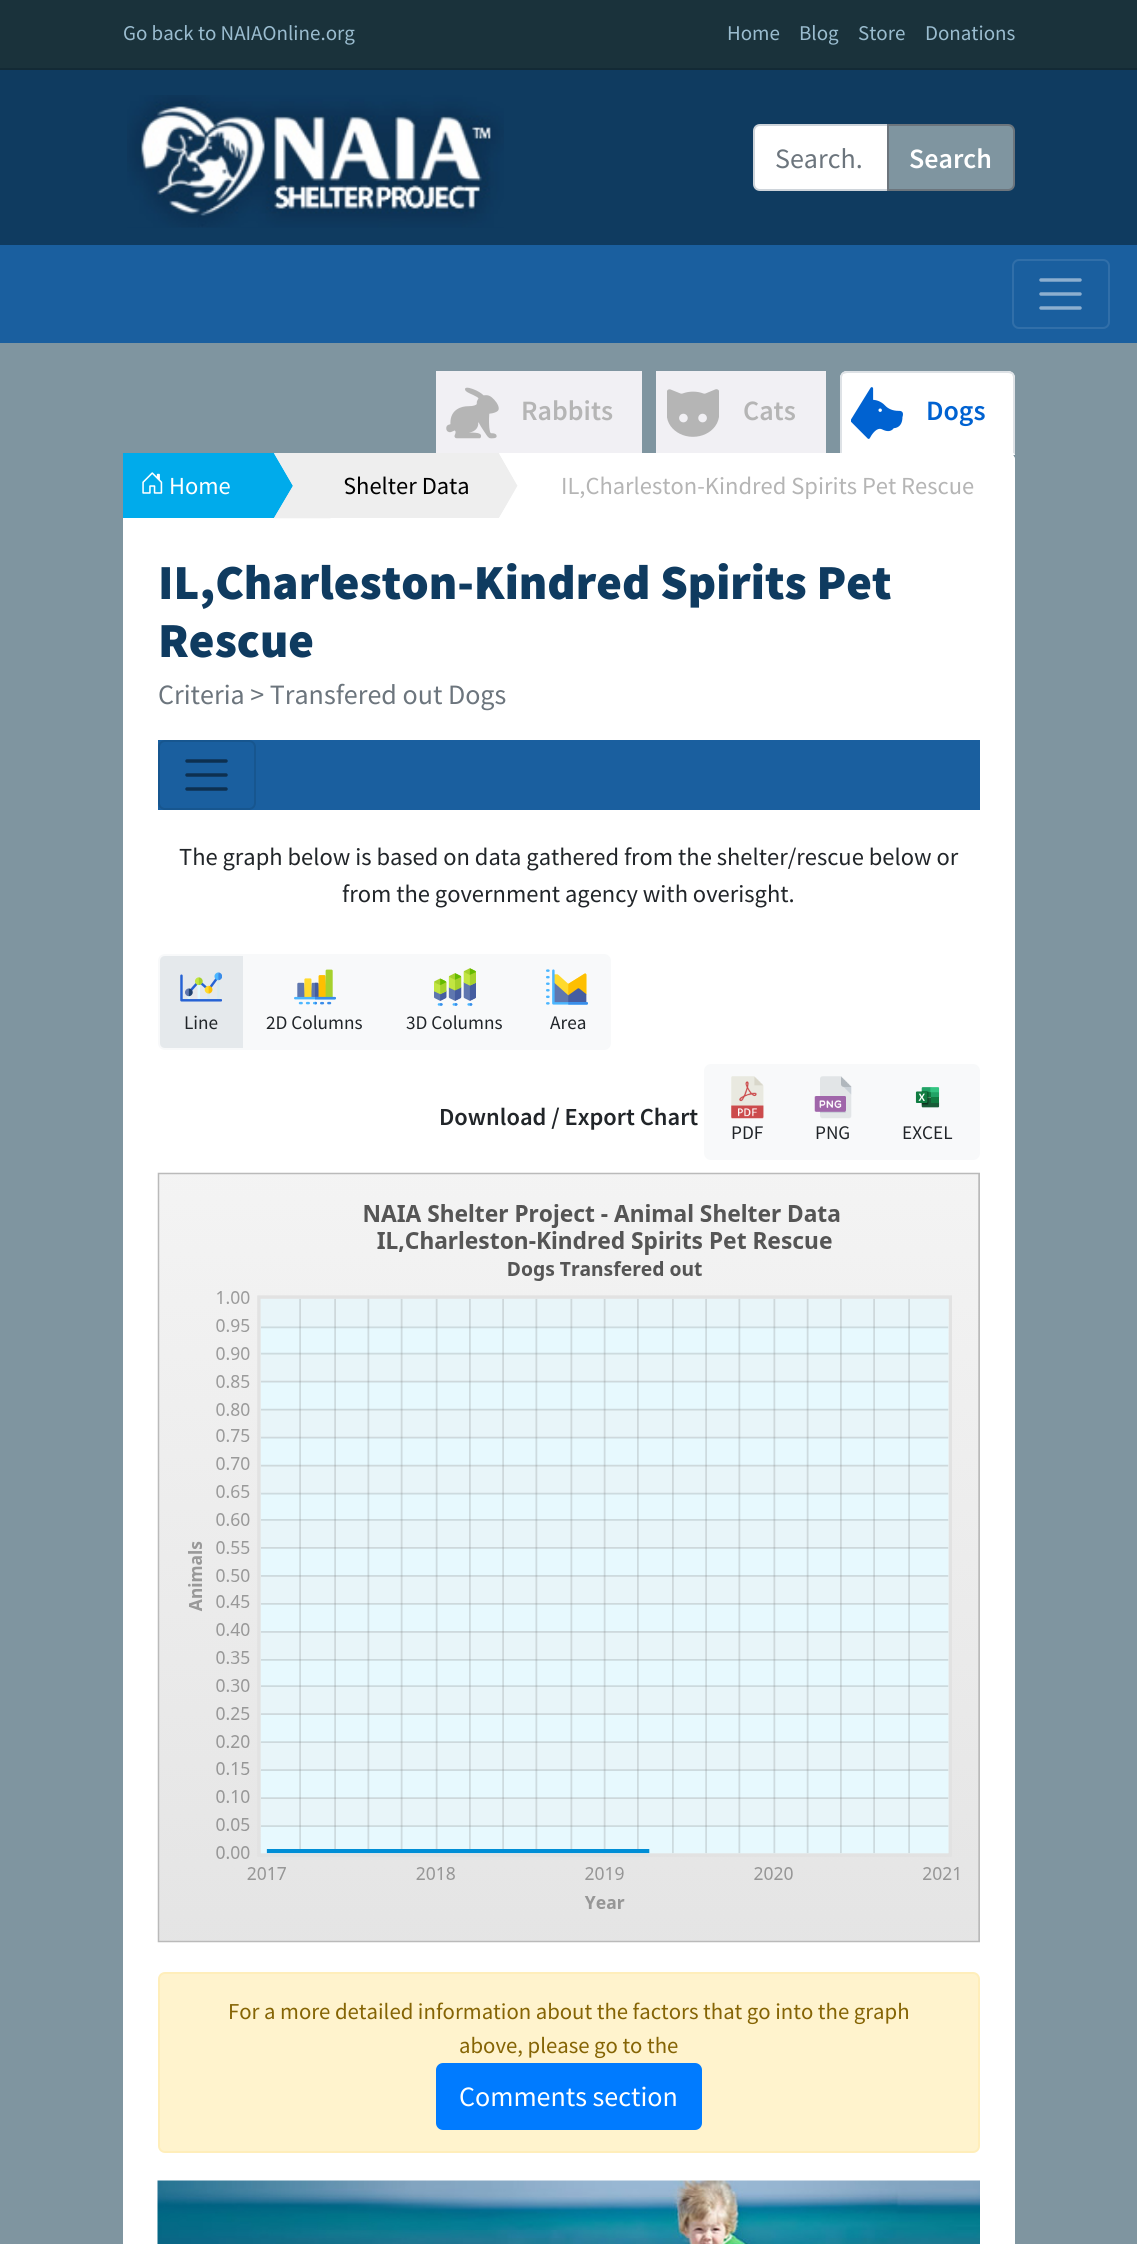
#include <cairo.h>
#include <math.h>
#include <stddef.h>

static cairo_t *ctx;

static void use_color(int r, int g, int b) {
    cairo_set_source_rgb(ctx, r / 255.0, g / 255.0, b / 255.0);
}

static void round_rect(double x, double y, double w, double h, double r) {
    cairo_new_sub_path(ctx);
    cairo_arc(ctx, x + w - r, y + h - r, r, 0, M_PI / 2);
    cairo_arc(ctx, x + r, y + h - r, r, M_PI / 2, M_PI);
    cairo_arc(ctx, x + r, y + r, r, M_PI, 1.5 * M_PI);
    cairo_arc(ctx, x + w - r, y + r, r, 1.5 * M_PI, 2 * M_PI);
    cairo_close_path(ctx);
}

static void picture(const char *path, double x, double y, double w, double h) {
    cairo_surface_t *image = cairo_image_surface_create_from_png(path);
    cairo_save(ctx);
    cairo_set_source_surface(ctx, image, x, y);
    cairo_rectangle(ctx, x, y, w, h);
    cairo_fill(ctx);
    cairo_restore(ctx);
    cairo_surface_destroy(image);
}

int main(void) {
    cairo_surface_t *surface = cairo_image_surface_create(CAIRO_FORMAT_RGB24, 1137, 2244);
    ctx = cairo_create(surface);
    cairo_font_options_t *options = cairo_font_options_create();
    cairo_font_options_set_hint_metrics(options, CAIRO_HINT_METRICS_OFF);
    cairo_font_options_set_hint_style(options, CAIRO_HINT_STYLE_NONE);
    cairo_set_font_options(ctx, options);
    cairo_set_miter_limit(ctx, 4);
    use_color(127, 149, 160);
    cairo_paint(ctx);
    use_color(26, 50, 59);
    cairo_rectangle(ctx, 0, 0, 1137, 68);
    cairo_fill(ctx);
    use_color(19, 42, 53);
    cairo_rectangle(ctx, 0, 68, 1137, 2);
    cairo_fill(ctx);
    cairo_select_font_face(ctx, "Source Sans Pro", CAIRO_FONT_SLANT_NORMAL, CAIRO_FONT_WEIGHT_NORMAL);
    cairo_set_font_size(ctx, 21);
    use_color(154, 188, 207);
    cairo_move_to(ctx, 123, 40);
    cairo_show_text(ctx, "Go back to NAIAOnline.org");
    cairo_move_to(ctx, 727, 40);
    cairo_show_text(ctx, "Home");
    cairo_move_to(ctx, 799, 40);
    cairo_show_text(ctx, "Blog");
    cairo_move_to(ctx, 858, 40);
    cairo_show_text(ctx, "Store");
    cairo_move_to(ctx, 925, 40);
    cairo_show_text(ctx, "Donations");
    use_color(15, 59, 96);
    cairo_rectangle(ctx, 0, 70, 1137, 175);
    cairo_fill(ctx);
    picture("img1.png", 127, 95, 377, 133);
    use_color(255, 255, 255);
    cairo_new_path(ctx);
    cairo_move_to(ctx, 760, 125);
    cairo_line_to(ctx, 888, 125);
    cairo_line_to(ctx, 888, 190);
    cairo_line_to(ctx, 760, 190);
    cairo_curve_to(ctx, 756.5, 190, 754, 187.5, 754, 184);
    cairo_line_to(ctx, 754, 131);
    cairo_curve_to(ctx, 754, 127.5, 756.5, 125, 760, 125);
    cairo_close_path(ctx);
    cairo_fill_preserve(ctx);
    use_color(206, 212, 218);
    cairo_stroke(ctx);
    cairo_set_font_size(ctx, 28);
    use_color(108, 117, 125);
    cairo_move_to(ctx, 775, 168);
    cairo_show_text(ctx, "Search.");
    use_color(127, 149, 160);
    cairo_new_path(ctx);
    cairo_move_to(ctx, 888, 125);
    cairo_line_to(ctx, 1008, 125);
    cairo_curve_to(ctx, 1011.5, 125, 1014, 127.5, 1014, 131);
    cairo_line_to(ctx, 1014, 184);
    cairo_curve_to(ctx, 1014, 187.5, 1011.5, 190, 1008, 190);
    cairo_line_to(ctx, 888, 190);
    cairo_close_path(ctx);
    cairo_fill_preserve(ctx);
    use_color(108, 117, 125);
    cairo_stroke(ctx);
    cairo_select_font_face(ctx, "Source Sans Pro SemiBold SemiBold", CAIRO_FONT_SLANT_NORMAL, CAIRO_FONT_WEIGHT_NORMAL);
    use_color(255, 255, 255);
    cairo_move_to(ctx, 909, 168);
    cairo_show_text(ctx, "Search");
    use_color(26, 95, 159);
    cairo_rectangle(ctx, 0, 245, 1137, 98);
    cairo_fill(ctx);
    round_rect(1013, 260, 96, 68, 6);
    use_color(49, 111, 169);
    cairo_stroke(ctx);
    cairo_new_path(ctx);
    cairo_move_to(ctx, 1041, 280);
    cairo_line_to(ctx, 1080, 280);
    cairo_move_to(ctx, 1041, 294);
    cairo_line_to(ctx, 1080, 294);
    cairo_move_to(ctx, 1041, 308);
    cairo_line_to(ctx, 1080, 308);
    use_color(141, 175, 207);
    cairo_set_line_width(ctx, 3.5);
    cairo_set_line_cap(ctx, CAIRO_LINE_CAP_ROUND);
    cairo_stroke(ctx);
    use_color(241, 240, 244);
    cairo_rectangle(ctx, 436, 371, 206, 82);
    cairo_fill(ctx);
    picture("img2.png", 446, 387, 53, 52);
    use_color(181, 181, 181);
    cairo_move_to(ctx, 521, 420);
    cairo_show_text(ctx, "Rabbits");
    use_color(241, 240, 244);
    cairo_rectangle(ctx, 656, 371, 170, 82);
    cairo_fill(ctx);
    picture("img3.png", 667, 389, 52, 48);
    use_color(181, 181, 181);
    cairo_move_to(ctx, 743, 420);
    cairo_show_text(ctx, "Cats");
    use_color(255, 255, 255);
    cairo_new_path(ctx);
    cairo_move_to(ctx, 847, 371);
    cairo_line_to(ctx, 1008, 371);
    cairo_curve_to(ctx, 1012, 371, 1015, 374, 1015, 378);
    cairo_line_to(ctx, 1015, 455);
    cairo_line_to(ctx, 840, 455);
    cairo_line_to(ctx, 840, 378);
    cairo_curve_to(ctx, 840, 374, 843, 371, 847, 371);
    cairo_close_path(ctx);
    cairo_fill(ctx);
    use_color(222, 226, 230);
    cairo_new_path(ctx);
    cairo_move_to(ctx, 847, 371);
    cairo_curve_to(ctx, 845, 371, 843, 372, 842, 373);
    cairo_line_to(ctx, 843, 374);
    cairo_curve_to(ctx, 844, 374, 846, 373, 847, 373);
    cairo_line_to(ctx, 1008, 373);
    cairo_curve_to(ctx, 1010, 373, 1011, 374, 1012, 374);
    cairo_line_to(ctx, 1013, 373);
    cairo_curve_to(ctx, 1012, 372, 1010, 371, 1008, 371);
    cairo_close_path(ctx);
    cairo_fill(ctx);
    cairo_new_path(ctx);
    cairo_move_to(ctx, 1015, 455);
    cairo_line_to(ctx, 1015, 378);
    cairo_curve_to(ctx, 1015, 376, 1014, 374, 1013, 373);
    cairo_line_to(ctx, 1012, 374);
    cairo_line_to(ctx, 1013, 377);
    cairo_line_to(ctx, 1013, 453);
    cairo_close_path(ctx);
    cairo_fill(ctx);
    use_color(255, 255, 255);
    cairo_new_path(ctx);
    cairo_move_to(ctx, 1015, 455);
    cairo_line_to(ctx, 1013, 453);
    cairo_line_to(ctx, 842, 453);
    cairo_line_to(ctx, 840, 455);
    cairo_close_path(ctx);
    cairo_fill(ctx);
    use_color(222, 226, 230);
    cairo_new_path(ctx);
    cairo_move_to(ctx, 840, 455);
    cairo_line_to(ctx, 842, 453);
    cairo_line_to(ctx, 842, 377);
    cairo_line_to(ctx, 843, 374);
    cairo_line_to(ctx, 842, 373);
    cairo_curve_to(ctx, 841, 374, 840, 376, 840, 378);
    cairo_close_path(ctx);
    cairo_fill(ctx);
    picture("img4.png", 851, 387, 52, 52);
    use_color(0, 98, 209);
    cairo_move_to(ctx, 926, 420);
    cairo_show_text(ctx, "Dogs");
    use_color(255, 255, 255);
    round_rect(123, 453, 892, 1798, 7);
    cairo_fill(ctx);
    round_rect(123, 453, 892, 65, 7);
    cairo_fill(ctx);
    use_color(0, 171, 235);
    cairo_rectangle(ctx, 123, 453, 170, 65);
    cairo_fill(ctx);
    picture("img5.png", 142, 472, 21, 22);
    cairo_select_font_face(ctx, "Source Sans Pro", CAIRO_FONT_SLANT_NORMAL, CAIRO_FONT_WEIGHT_NORMAL);
    cairo_set_font_size(ctx, 24.5);
    use_color(255, 255, 255);
    cairo_move_to(ctx, 169, 494);
    cairo_show_text(ctx, "Home");
    use_color(238, 238, 238);
    cairo_rectangle(ctx, 319, 453, 199, 65);
    cairo_fill(ctx);
    cairo_new_path(ctx);
    cairo_move_to(ctx, 274, 453);
    cairo_line_to(ctx, 319, 453);
    cairo_line_to(ctx, 338, 486);
    cairo_line_to(ctx, 293, 486);
    cairo_close_path(ctx);
    cairo_fill(ctx);
    cairo_new_path(ctx);
    cairo_move_to(ctx, 277, 455);
    cairo_line_to(ctx, 318.5, 455);
    cairo_line_to(ctx, 335, 484);
    cairo_line_to(ctx, 294, 484);
    cairo_close_path(ctx);
    cairo_set_line_cap(ctx, CAIRO_LINE_CAP_BUTT);
    cairo_stroke(ctx);
    use_color(0, 0, 0);
    cairo_move_to(ctx, 343, 494);
    cairo_show_text(ctx, "Shelter Data");
    use_color(238, 238, 238);
    cairo_new_path(ctx);
    cairo_move_to(ctx, 293, 486);
    cairo_line_to(ctx, 349, 486);
    cairo_line_to(ctx, 330, 518);
    cairo_line_to(ctx, 274, 518);
    cairo_close_path(ctx);
    cairo_fill(ctx);
    cairo_new_path(ctx);
    cairo_move_to(ctx, 294, 487.5);
    cairo_line_to(ctx, 346.5, 487.5);
    cairo_line_to(ctx, 329.5, 516.5);
    cairo_line_to(ctx, 277, 516.5);
    cairo_close_path(ctx);
    cairo_stroke(ctx);
    use_color(255, 255, 255);
    cairo_new_path(ctx);
    cairo_move_to(ctx, 499, 453);
    cairo_line_to(ctx, 534, 453);
    cairo_line_to(ctx, 553, 486);
    cairo_line_to(ctx, 518, 486);
    cairo_close_path(ctx);
    cairo_fill(ctx);
    cairo_new_path(ctx);
    cairo_move_to(ctx, 502, 455);
    cairo_line_to(ctx, 533.5, 455);
    cairo_line_to(ctx, 550, 484);
    cairo_line_to(ctx, 518.5, 484);
    cairo_close_path(ctx);
    cairo_stroke(ctx);
    use_color(181, 181, 181);
    cairo_move_to(ctx, 561, 494);
    cairo_show_text(ctx, "IL,Charleston-Kindred Spirits Pet Rescue");
    use_color(255, 255, 255);
    cairo_new_path(ctx);
    cairo_move_to(ctx, 518, 486);
    cairo_line_to(ctx, 553, 486);
    cairo_line_to(ctx, 534, 518);
    cairo_line_to(ctx, 499, 518);
    cairo_close_path(ctx);
    cairo_fill(ctx);
    cairo_new_path(ctx);
    cairo_move_to(ctx, 518.5, 487.5);
    cairo_line_to(ctx, 550, 487.5);
    cairo_line_to(ctx, 533.5, 516.5);
    cairo_line_to(ctx, 502, 516.5);
    cairo_close_path(ctx);
    cairo_stroke(ctx);
    cairo_select_font_face(ctx, "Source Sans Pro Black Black", CAIRO_FONT_SLANT_NORMAL, CAIRO_FONT_WEIGHT_NORMAL);
    cairo_set_font_size(ctx, 49);
    use_color(15, 59, 96);
    cairo_move_to(ctx, 158, 599);
    cairo_show_text(ctx, "IL,Charleston-Kindred Spirits Pet");
    cairo_move_to(ctx, 158, 657);
    cairo_show_text(ctx, "Rescue");
    cairo_select_font_face(ctx, "Source Sans Pro", CAIRO_FONT_SLANT_NORMAL, CAIRO_FONT_WEIGHT_NORMAL);
    cairo_set_font_size(ctx, 28);
    use_color(108, 117, 125);
    cairo_move_to(ctx, 158, 704);
    cairo_show_text(ctx, "Criteria > Transfered out Dogs");
    use_color(26, 95, 159);
    cairo_rectangle(ctx, 158, 740, 822, 70);
    cairo_fill(ctx);
    round_rect(159, 741, 96, 68, 6);
    use_color(23, 86, 143);
    cairo_set_line_width(ctx, 2);
    cairo_stroke(ctx);
    cairo_new_path(ctx);
    cairo_move_to(ctx, 187, 761);
    cairo_line_to(ctx, 226, 761);
    cairo_move_to(ctx, 187, 775);
    cairo_line_to(ctx, 226, 775);
    cairo_move_to(ctx, 187, 789);
    cairo_line_to(ctx, 226, 789);
    use_color(13, 48, 80);
    cairo_set_line_width(ctx, 3.5);
    cairo_set_line_cap(ctx, CAIRO_LINE_CAP_ROUND);
    cairo_stroke(ctx);
    cairo_set_font_size(ctx, 24.5);
    use_color(33, 37, 41);
    cairo_move_to(ctx, 179, 865);
    cairo_show_text(ctx, "The graph below is based on data gathered from the shelter/rescue below or");
    cairo_move_to(ctx, 342, 902);
    cairo_show_text(ctx, "from the government agency with overisght.");
    use_color(229, 233, 236);
    cairo_new_path(ctx);
    cairo_move_to(ctx, 165, 955);
    cairo_line_to(ctx, 244, 955);
    cairo_line_to(ctx, 244, 1049);
    cairo_line_to(ctx, 165, 1049);
    cairo_curve_to(ctx, 161.5, 1049, 159, 1046.5, 159, 1043);
    cairo_line_to(ctx, 159, 961);
    cairo_curve_to(ctx, 159, 957.5, 161.5, 955, 165, 955);
    cairo_close_path(ctx);
    cairo_fill_preserve(ctx);
    use_color(248, 249, 250);
    cairo_set_line_width(ctx, 2);
    cairo_set_line_cap(ctx, CAIRO_LINE_CAP_BUTT);
    cairo_stroke(ctx);
    picture("img6.png", 180, 972, 42, 30);
    cairo_set_font_size(ctx, 19.25);
    use_color(33, 37, 41);
    cairo_move_to(ctx, 184, 1029);
    cairo_show_text(ctx, "Line");
    use_color(248, 249, 250);
    cairo_rectangle(ctx, 245, 954, 278, 96);
    cairo_fill(ctx);
    picture("img7.png", 294, 969, 42, 36);
    use_color(33, 37, 41);
    cairo_move_to(ctx, 266, 1029);
    cairo_show_text(ctx, "2D Columns");
    picture("img8.png", 434, 968, 42, 38);
    cairo_move_to(ctx, 406, 1029);
    cairo_show_text(ctx, "3D Columns");
    use_color(248, 249, 250);
    cairo_new_path(ctx);
    cairo_move_to(ctx, 523, 954);
    cairo_line_to(ctx, 604, 954);
    cairo_curve_to(ctx, 608, 954, 611, 957, 611, 961);
    cairo_line_to(ctx, 611, 1043);
    cairo_curve_to(ctx, 611, 1047, 608, 1050, 604, 1050);
    cairo_line_to(ctx, 523, 1050);
    cairo_close_path(ctx);
    cairo_fill(ctx);
    picture("img9.png", 546, 969, 42, 36);
    use_color(33, 37, 41);
    cairo_move_to(ctx, 550, 1029);
    cairo_show_text(ctx, "Area");
    cairo_select_font_face(ctx, "Source Sans Pro SemiBold SemiBold", CAIRO_FONT_SLANT_NORMAL, CAIRO_FONT_WEIGHT_NORMAL);
    cairo_set_font_size(ctx, 24.5);
    cairo_move_to(ctx, 439, 1125);
    cairo_show_text(ctx, "Download / Export Chart");
    use_color(248, 249, 250);
    cairo_new_path(ctx);
    cairo_move_to(ctx, 711, 1064);
    cairo_line_to(ctx, 791, 1064);
    cairo_line_to(ctx, 791, 1160);
    cairo_line_to(ctx, 711, 1160);
    cairo_curve_to(ctx, 707, 1160, 704, 1157, 704, 1153);
    cairo_line_to(ctx, 704, 1071);
    cairo_curve_to(ctx, 704, 1067, 707, 1064, 711, 1064);
    cairo_close_path(ctx);
    cairo_fill(ctx);
    picture("img10.png", 731, 1076, 33, 43);
    cairo_select_font_face(ctx, "Source Sans Pro", CAIRO_FONT_SLANT_NORMAL, CAIRO_FONT_WEIGHT_NORMAL);
    cairo_set_font_size(ctx, 19.25);
    use_color(33, 37, 41);
    cairo_move_to(ctx, 731, 1139);
    cairo_show_text(ctx, "PDF");
    use_color(248, 249, 250);
    cairo_rectangle(ctx, 791, 1064, 84, 96);
    cairo_fill(ctx);
    picture("img11.png", 814, 1076, 38, 43);
    use_color(33, 37, 41);
    cairo_move_to(ctx, 815, 1139);
    cairo_show_text(ctx, "PNG");
    use_color(248, 249, 250);
    cairo_new_path(ctx);
    cairo_move_to(ctx, 875, 1064);
    cairo_line_to(ctx, 973, 1064);
    cairo_curve_to(ctx, 977, 1064, 980, 1067, 980, 1071);
    cairo_line_to(ctx, 980, 1153);
    cairo_curve_to(ctx, 980, 1157, 977, 1160, 973, 1160);
    cairo_line_to(ctx, 875, 1160);
    cairo_close_path(ctx);
    cairo_fill(ctx);
    picture("img12.png", 915, 1087, 25, 21);
    use_color(33, 37, 41);
    cairo_move_to(ctx, 902, 1139);
    cairo_show_text(ctx, "EXCEL");
    picture("img13.png", 157, 1172, 823, 771);
    use_color(255, 243, 205);
    round_rect(159, 1973, 820, 179, 6);
    cairo_fill_preserve(ctx);
    use_color(255, 238, 186);
    cairo_stroke(ctx);
    cairo_set_font_size(ctx, 22.75);
    use_color(133, 100, 4);
    cairo_move_to(ctx, 228, 2019);
    cairo_show_text(ctx, "For a more detailed information about the factors that go into the graph");
    cairo_move_to(ctx, 459, 2053);
    cairo_show_text(ctx, "above, please go to the");
    use_color(0, 123, 255);
    round_rect(437, 2064, 264, 65, 6);
    cairo_fill_preserve(ctx);
    cairo_stroke(ctx);
    cairo_set_font_size(ctx, 28);
    use_color(255, 255, 255);
    cairo_move_to(ctx, 459, 2106);
    cairo_show_text(ctx, "Comments section");
    picture("img14.png", 157, 2180, 823, 64);
    cairo_surface_write_to_png(surface, "result.png");
    cairo_font_options_destroy(options);
    cairo_destroy(ctx);
    cairo_surface_destroy(surface);
    return 0;
}
